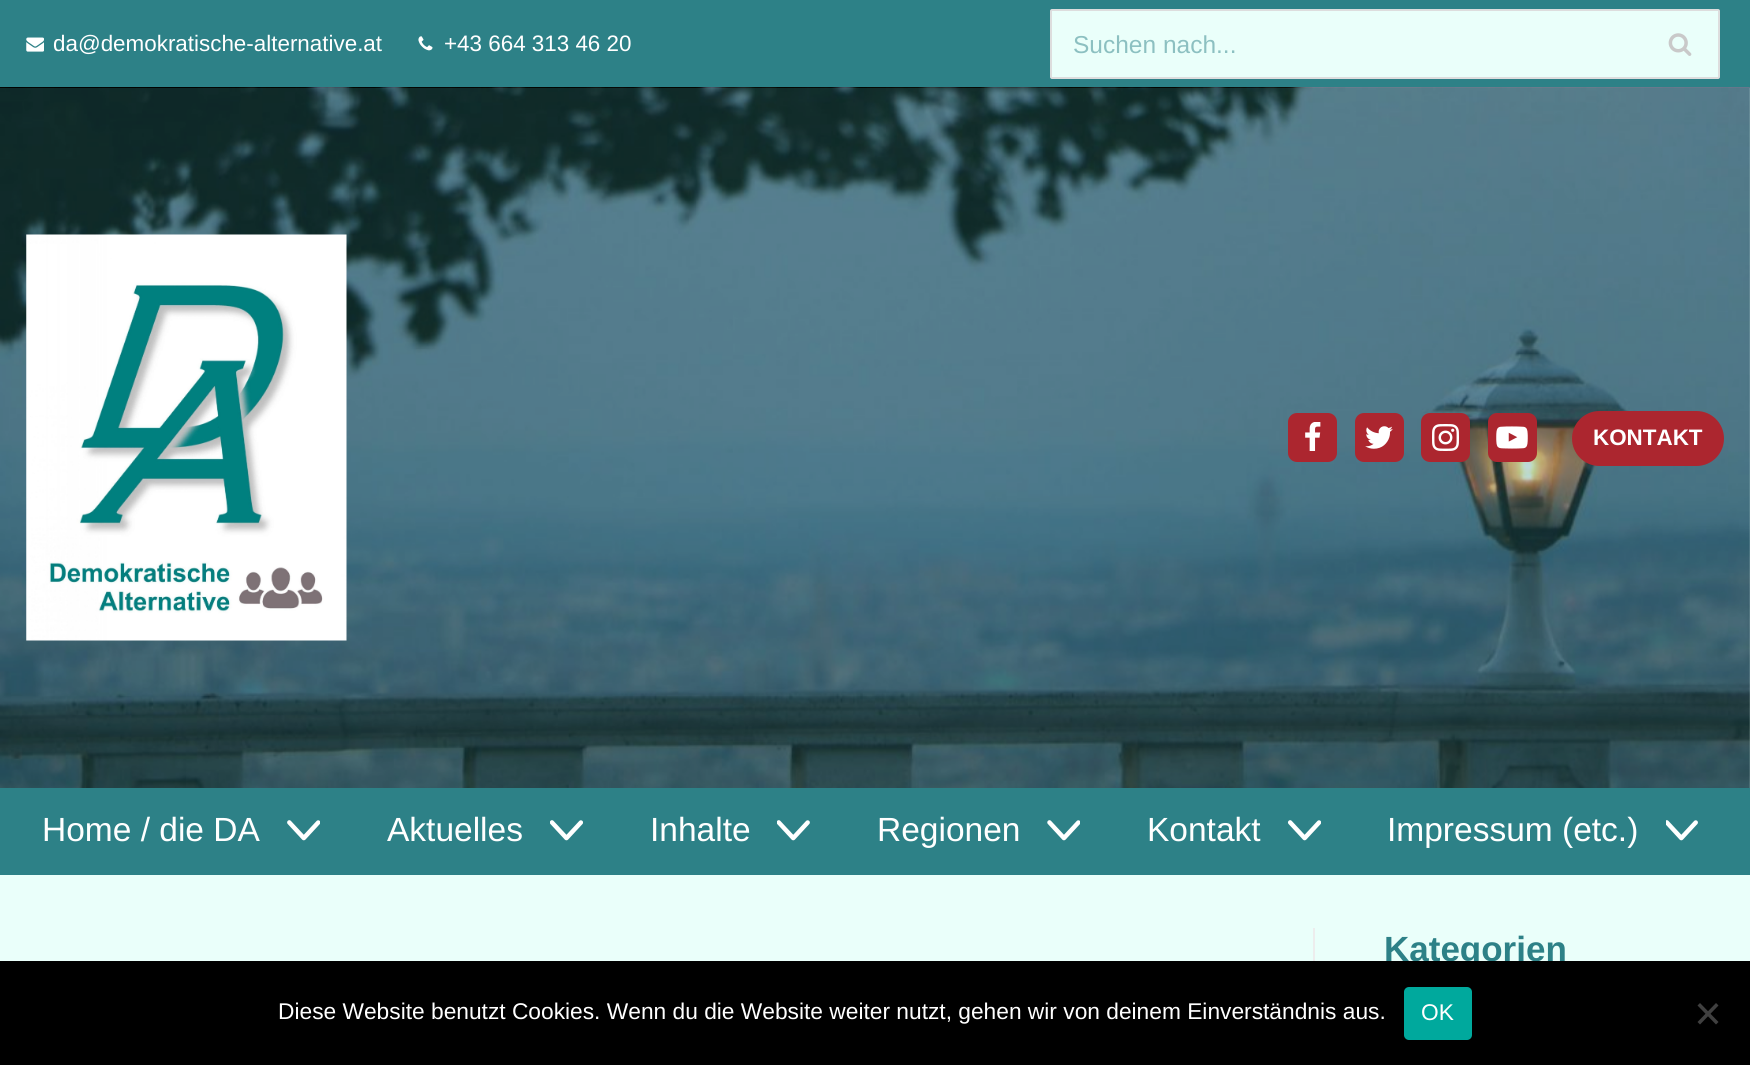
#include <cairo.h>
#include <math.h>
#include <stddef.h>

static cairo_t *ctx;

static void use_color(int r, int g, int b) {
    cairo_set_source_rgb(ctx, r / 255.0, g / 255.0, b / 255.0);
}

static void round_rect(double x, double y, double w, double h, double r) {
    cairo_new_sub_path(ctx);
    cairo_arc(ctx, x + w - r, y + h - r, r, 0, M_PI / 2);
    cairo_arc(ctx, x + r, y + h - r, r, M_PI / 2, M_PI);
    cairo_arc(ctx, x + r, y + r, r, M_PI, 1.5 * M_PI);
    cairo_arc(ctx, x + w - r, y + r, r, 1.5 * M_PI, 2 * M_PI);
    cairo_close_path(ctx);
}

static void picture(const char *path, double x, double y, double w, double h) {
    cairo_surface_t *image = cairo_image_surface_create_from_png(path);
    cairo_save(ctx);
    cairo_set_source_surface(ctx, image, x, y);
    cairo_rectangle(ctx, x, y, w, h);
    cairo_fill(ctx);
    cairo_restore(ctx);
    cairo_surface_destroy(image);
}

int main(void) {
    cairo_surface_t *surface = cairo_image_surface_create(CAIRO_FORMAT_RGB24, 1750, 1065);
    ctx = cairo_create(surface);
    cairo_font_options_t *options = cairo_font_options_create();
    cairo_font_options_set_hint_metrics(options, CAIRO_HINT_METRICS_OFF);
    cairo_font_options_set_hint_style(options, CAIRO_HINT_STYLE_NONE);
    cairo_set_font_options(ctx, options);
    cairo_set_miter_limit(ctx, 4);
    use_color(234, 255, 250);
    cairo_paint(ctx);
    use_color(45, 129, 135);
    cairo_rectangle(ctx, 0, 0, 1750, 88);
    cairo_fill(ctx);
    picture("img1.png", 26, 37, 18, 15);
    cairo_select_font_face(ctx, "Liberation Sans", CAIRO_FONT_SLANT_NORMAL, CAIRO_FONT_WEIGHT_NORMAL);
    cairo_set_font_size(ctx, 22.4);
    use_color(255, 255, 255);
    cairo_move_to(ctx, 53, 51);
    cairo_show_text(ctx, "da@demokratische-alternative.at");
    picture("img2.png", 418, 36, 15, 15);
    cairo_move_to(ctx, 444, 51);
    cairo_show_text(ctx, "+43 664 313 46 20");
    use_color(234, 255, 250);
    round_rect(1051, 10, 668, 68, 1);
    cairo_fill_preserve(ctx);
    use_color(221, 221, 221);
    cairo_stroke(ctx);
    cairo_set_font_size(ctx, 24.5);
    use_color(140, 192, 193);
    cairo_move_to(ctx, 1073, 53);
    cairo_show_text(ctx, "Suchen nach...");
    picture("img3.png", 1668, 33, 24, 23);
    picture("img4.png", 0, 87, 1750, 701);
    picture("img5.png", 26, 234, 321, 407);
    use_color(172, 38, 47);
    round_rect(1288, 413, 49, 49, 9);
    cairo_fill(ctx);
    picture("img6.png", 1305, 422, 16, 29);
    round_rect(1355, 413, 49, 49, 9);
    cairo_fill(ctx);
    picture("img7.png", 1365, 426, 28, 23);
    round_rect(1421, 413, 49, 49, 9);
    cairo_fill(ctx);
    picture("img8.png", 1432, 424, 27, 27);
    round_rect(1488, 413, 49, 49, 9);
    cairo_fill(ctx);
    picture("img9.png", 1496, 426, 32, 23);
    round_rect(1572, 411, 152, 55, 27.5);
    cairo_fill(ctx);
    cairo_select_font_face(ctx, "Liberation Sans", CAIRO_FONT_SLANT_NORMAL, CAIRO_FONT_WEIGHT_BOLD);
    cairo_set_font_size(ctx, 22.4);
    use_color(255, 255, 255);
    cairo_move_to(ctx, 1593, 445);
    cairo_show_text(ctx, "KONTAKT");
    use_color(45, 129, 135);
    cairo_rectangle(ctx, 0, 788, 1750, 87);
    cairo_fill(ctx);
    cairo_select_font_face(ctx, "Liberation Sans", CAIRO_FONT_SLANT_NORMAL, CAIRO_FONT_WEIGHT_NORMAL);
    cairo_set_font_size(ctx, 33.5);
    use_color(255, 255, 255);
    cairo_move_to(ctx, 42, 841);
    cairo_show_text(ctx, "Home / die DA");
    picture("img10.png", 287, 820, 33, 21);
    cairo_move_to(ctx, 387, 841);
    cairo_show_text(ctx, "Aktuelles");
    picture("img11.png", 550, 820, 33, 21);
    cairo_move_to(ctx, 650, 841);
    cairo_show_text(ctx, "Inhalte");
    picture("img12.png", 777, 820, 33, 21);
    cairo_move_to(ctx, 877, 841);
    cairo_show_text(ctx, "Regionen");
    picture("img13.png", 1047, 820, 33, 21);
    cairo_move_to(ctx, 1147, 841);
    cairo_show_text(ctx, "Kontakt");
    picture("img14.png", 1287, 820, 34, 21);
    cairo_move_to(ctx, 1387, 841);
    cairo_show_text(ctx, "Impressum (etc.)");
    picture("img15.png", 1666, 820, 32, 21);
    use_color(237, 237, 237);
    cairo_rectangle(ctx, 1313, 928, 2, 33);
    cairo_fill(ctx);
    cairo_select_font_face(ctx, "Liberation Sans", CAIRO_FONT_SLANT_NORMAL, CAIRO_FONT_WEIGHT_BOLD);
    cairo_set_font_size(ctx, 35);
    use_color(45, 129, 135);
    cairo_move_to(ctx, 1384, 961);
    cairo_show_text(ctx, "Kategorien");
    use_color(0, 0, 0);
    cairo_rectangle(ctx, 0, 961, 1750, 104);
    cairo_fill(ctx);
    cairo_select_font_face(ctx, "Liberation Sans", CAIRO_FONT_SLANT_NORMAL, CAIRO_FONT_WEIGHT_NORMAL);
    cairo_set_font_size(ctx, 22.75);
    use_color(255, 255, 255);
    cairo_move_to(ctx, 278, 1019);
    cairo_show_text(ctx, "Diese Website benutzt Cookies. Wenn du die Website weiter nutzt, gehen wir von deinem Einverständnis aus.");
    use_color(0, 169, 157);
    round_rect(1404, 987, 68, 53, 5);
    cairo_fill(ctx);
    use_color(255, 255, 255);
    cairo_move_to(ctx, 1421, 1020);
    cairo_show_text(ctx, "OK");
    use_color(64, 64, 64);
    cairo_new_path(ctx);
    cairo_move_to(ctx, 1716, 1003);
    cairo_line_to(ctx, 1718.5, 1005.5);
    cairo_line_to(ctx, 1700, 1024.5);
    cairo_line_to(ctx, 1697.5, 1022);
    cairo_close_path(ctx);
    cairo_fill(ctx);
    cairo_new_path(ctx);
    cairo_move_to(ctx, 1697.5, 1005.5);
    cairo_line_to(ctx, 1700, 1003);
    cairo_line_to(ctx, 1718.5, 1022);
    cairo_line_to(ctx, 1716, 1024.5);
    cairo_close_path(ctx);
    cairo_fill(ctx);
    cairo_surface_write_to_png(surface, "result.png");
    cairo_font_options_destroy(options);
    cairo_destroy(ctx);
    cairo_surface_destroy(surface);
    return 0;
}
